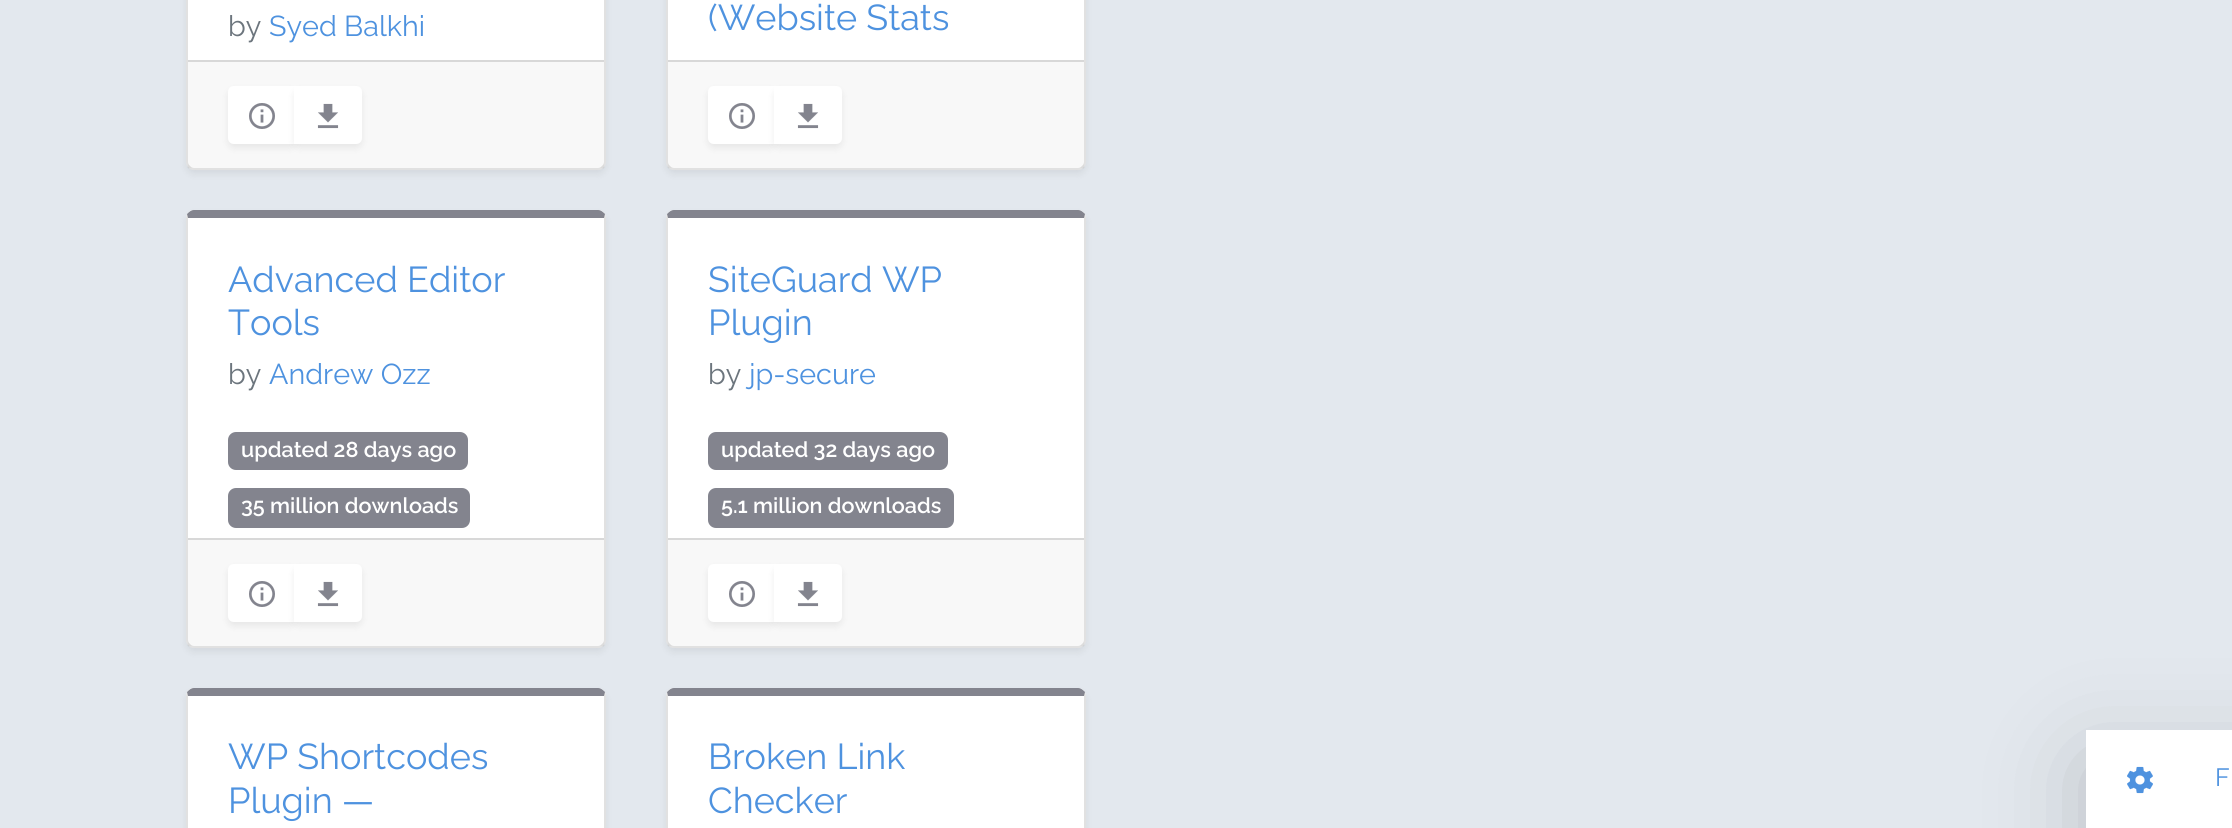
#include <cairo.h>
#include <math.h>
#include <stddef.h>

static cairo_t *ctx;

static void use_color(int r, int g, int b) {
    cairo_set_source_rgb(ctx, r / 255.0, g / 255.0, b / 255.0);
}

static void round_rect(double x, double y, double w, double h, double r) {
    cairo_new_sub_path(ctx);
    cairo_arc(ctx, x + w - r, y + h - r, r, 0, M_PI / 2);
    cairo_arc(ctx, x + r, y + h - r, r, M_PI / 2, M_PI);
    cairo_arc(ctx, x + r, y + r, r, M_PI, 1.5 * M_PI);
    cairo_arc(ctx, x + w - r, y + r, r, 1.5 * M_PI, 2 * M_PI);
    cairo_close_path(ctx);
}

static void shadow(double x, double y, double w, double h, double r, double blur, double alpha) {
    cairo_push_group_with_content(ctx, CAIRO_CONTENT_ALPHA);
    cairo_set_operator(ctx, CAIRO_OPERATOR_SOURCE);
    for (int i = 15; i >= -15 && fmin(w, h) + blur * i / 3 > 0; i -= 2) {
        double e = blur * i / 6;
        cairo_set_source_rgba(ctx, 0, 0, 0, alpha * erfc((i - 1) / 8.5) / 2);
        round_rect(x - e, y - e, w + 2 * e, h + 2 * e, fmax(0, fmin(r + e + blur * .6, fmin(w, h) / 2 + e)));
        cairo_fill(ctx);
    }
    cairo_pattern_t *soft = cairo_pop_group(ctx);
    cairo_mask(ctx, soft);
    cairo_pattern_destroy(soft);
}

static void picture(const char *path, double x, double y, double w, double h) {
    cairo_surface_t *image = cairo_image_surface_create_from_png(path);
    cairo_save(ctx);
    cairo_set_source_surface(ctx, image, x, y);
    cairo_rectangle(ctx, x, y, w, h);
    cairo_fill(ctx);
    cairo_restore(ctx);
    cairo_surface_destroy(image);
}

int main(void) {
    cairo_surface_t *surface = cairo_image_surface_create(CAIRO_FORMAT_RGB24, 2232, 828);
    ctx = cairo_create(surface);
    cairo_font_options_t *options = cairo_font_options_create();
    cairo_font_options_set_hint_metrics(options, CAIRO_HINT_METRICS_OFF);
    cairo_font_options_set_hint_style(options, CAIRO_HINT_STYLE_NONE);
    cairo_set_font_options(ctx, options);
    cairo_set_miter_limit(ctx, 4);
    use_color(227, 232, 238);
    cairo_paint(ctx);
    use_color(0, 0, 0);
    shadow(186, -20, 420, 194, 8, 4, 0.07);
    use_color(255, 255, 255);
    round_rect(186, -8, 420, 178, 8);
    cairo_fill(ctx);
    cairo_set_source_rgba(ctx, 0, 0, 0, 0.12);
    cairo_new_path(ctx);
    cairo_move_to(ctx, 606, 162);
    cairo_line_to(ctx, 606, -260);
    cairo_line_to(ctx, 605, -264);
    cairo_line_to(ctx, 604, -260);
    cairo_line_to(ctx, 604, 162);
    cairo_curve_to(ctx, 604, 164, 603, 165, 602, 166);
    cairo_line_to(ctx, 604, 168);
    cairo_curve_to(ctx, 605, 166, 606, 164, 606, 162);
    cairo_close_path(ctx);
    cairo_fill(ctx);
    cairo_new_path(ctx);
    cairo_move_to(ctx, 194, 170);
    cairo_line_to(ctx, 598, 170);
    cairo_curve_to(ctx, 600, 170, 602, 169, 604, 168);
    cairo_line_to(ctx, 602, 166);
    cairo_curve_to(ctx, 601, 167, 600, 168, 598, 168);
    cairo_line_to(ctx, 194, 168);
    cairo_curve_to(ctx, 192, 168, 191, 167, 190, 166);
    cairo_line_to(ctx, 188, 168);
    cairo_curve_to(ctx, 190, 169, 192, 170, 194, 170);
    cairo_close_path(ctx);
    cairo_fill(ctx);
    cairo_new_path(ctx);
    cairo_move_to(ctx, 186, -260);
    cairo_line_to(ctx, 186, 162);
    cairo_curve_to(ctx, 186, 164, 187, 166, 188, 168);
    cairo_line_to(ctx, 190, 166);
    cairo_curve_to(ctx, 189, 165, 188, 164, 188, 162);
    cairo_line_to(ctx, 188, -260);
    cairo_line_to(ctx, 187, -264);
    cairo_close_path(ctx);
    cairo_fill(ctx);
    cairo_select_font_face(ctx, "Raleway", CAIRO_FONT_SLANT_NORMAL, CAIRO_FONT_WEIGHT_NORMAL);
    cairo_set_font_size(ctx, 28.75);
    use_color(108, 117, 125);
    cairo_move_to(ctx, 228, 36);
    cairo_show_text(ctx, "by");
    use_color(78, 146, 223);
    cairo_move_to(ctx, 269, 36);
    cairo_show_text(ctx, "Syed Balkhi");
    cairo_set_source_rgba(ctx, 0, 0, 0, 0.03);
    cairo_rectangle(ctx, 188, 62, 416, 106);
    cairo_fill(ctx);
    use_color(216, 216, 216);
    cairo_rectangle(ctx, 188, 60, 416, 2);
    cairo_fill(ctx);
    use_color(0, 0, 0);
    shadow(228, 90, 68, 58, 6, 4, 0.07);
    use_color(255, 255, 255);
    cairo_new_path(ctx);
    cairo_move_to(ctx, 234, 87);
    cairo_line_to(ctx, 295, 87);
    cairo_line_to(ctx, 295, 143);
    cairo_line_to(ctx, 234, 143);
    cairo_curve_to(ctx, 231, 143, 229, 141, 229, 138);
    cairo_line_to(ctx, 229, 92);
    cairo_curve_to(ctx, 229, 89, 231, 87, 234, 87);
    cairo_close_path(ctx);
    cairo_fill_preserve(ctx);
    cairo_stroke(ctx);
    picture("img1.png", 249, 103, 26, 26);
    use_color(0, 0, 0);
    shadow(294, 90, 68, 58, 6, 4, 0.07);
    use_color(255, 255, 255);
    cairo_new_path(ctx);
    cairo_move_to(ctx, 295, 87);
    cairo_line_to(ctx, 356, 87);
    cairo_curve_to(ctx, 359, 87, 361, 89, 361, 92);
    cairo_line_to(ctx, 361, 138);
    cairo_curve_to(ctx, 361, 141, 359, 143, 356, 143);
    cairo_line_to(ctx, 295, 143);
    cairo_close_path(ctx);
    cairo_fill_preserve(ctx);
    cairo_stroke(ctx);
    picture("img2.png", 317, 103, 22, 26);
    use_color(0, 0, 0);
    shadow(666, -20, 420, 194, 8, 4, 0.07);
    use_color(255, 255, 255);
    round_rect(666, -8, 420, 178, 8);
    cairo_fill(ctx);
    cairo_set_source_rgba(ctx, 0, 0, 0, 0.12);
    cairo_new_path(ctx);
    cairo_move_to(ctx, 1086, 162);
    cairo_line_to(ctx, 1086, -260);
    cairo_line_to(ctx, 1085, -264);
    cairo_line_to(ctx, 1084, -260);
    cairo_line_to(ctx, 1084, 162);
    cairo_curve_to(ctx, 1084, 164, 1083, 165, 1082, 166);
    cairo_line_to(ctx, 1084, 168);
    cairo_curve_to(ctx, 1085, 166, 1086, 164, 1086, 162);
    cairo_close_path(ctx);
    cairo_fill(ctx);
    cairo_new_path(ctx);
    cairo_move_to(ctx, 674, 170);
    cairo_line_to(ctx, 1078, 170);
    cairo_curve_to(ctx, 1080, 170, 1082, 169, 1084, 168);
    cairo_line_to(ctx, 1082, 166);
    cairo_curve_to(ctx, 1081, 167, 1080, 168, 1078, 168);
    cairo_line_to(ctx, 674, 168);
    cairo_curve_to(ctx, 672, 168, 671, 167, 670, 166);
    cairo_line_to(ctx, 668, 168);
    cairo_curve_to(ctx, 670, 169, 672, 170, 674, 170);
    cairo_close_path(ctx);
    cairo_fill(ctx);
    cairo_new_path(ctx);
    cairo_move_to(ctx, 666, -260);
    cairo_line_to(ctx, 666, 162);
    cairo_curve_to(ctx, 666, 164, 667, 166, 668, 168);
    cairo_line_to(ctx, 670, 166);
    cairo_curve_to(ctx, 669, 165, 668, 164, 668, 162);
    cairo_line_to(ctx, 668, -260);
    cairo_line_to(ctx, 667, -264);
    cairo_close_path(ctx);
    cairo_fill(ctx);
    cairo_set_font_size(ctx, 36);
    use_color(78, 146, 223);
    cairo_move_to(ctx, 708, 30);
    cairo_show_text(ctx, "(Website Stats");
    cairo_set_source_rgba(ctx, 0, 0, 0, 0.03);
    cairo_rectangle(ctx, 668, 62, 416, 106);
    cairo_fill(ctx);
    use_color(216, 216, 216);
    cairo_rectangle(ctx, 668, 60, 416, 2);
    cairo_fill(ctx);
    use_color(0, 0, 0);
    shadow(708, 90, 68, 58, 6, 4, 0.07);
    use_color(255, 255, 255);
    cairo_new_path(ctx);
    cairo_move_to(ctx, 714, 87);
    cairo_line_to(ctx, 775, 87);
    cairo_line_to(ctx, 775, 143);
    cairo_line_to(ctx, 714, 143);
    cairo_curve_to(ctx, 711, 143, 709, 141, 709, 138);
    cairo_line_to(ctx, 709, 92);
    cairo_curve_to(ctx, 709, 89, 711, 87, 714, 87);
    cairo_close_path(ctx);
    cairo_fill_preserve(ctx);
    cairo_stroke(ctx);
    picture("img1.png", 729, 103, 26, 26);
    use_color(0, 0, 0);
    shadow(774, 90, 68, 58, 6, 4, 0.07);
    use_color(255, 255, 255);
    cairo_new_path(ctx);
    cairo_move_to(ctx, 775, 87);
    cairo_line_to(ctx, 836, 87);
    cairo_curve_to(ctx, 839, 87, 841, 89, 841, 92);
    cairo_line_to(ctx, 841, 138);
    cairo_curve_to(ctx, 841, 141, 839, 143, 836, 143);
    cairo_line_to(ctx, 775, 143);
    cairo_close_path(ctx);
    cairo_fill_preserve(ctx);
    cairo_stroke(ctx);
    picture("img2.png", 797, 103, 22, 26);
    use_color(0, 0, 0);
    shadow(186, 214, 420, 438, 8, 4, 0.07);
    use_color(255, 255, 255);
    round_rect(186, 210, 420, 438, 8);
    cairo_fill(ctx);
    use_color(131, 132, 142);
    cairo_new_path(ctx);
    cairo_move_to(ctx, 194, 210);
    cairo_curve_to(ctx, 191, 210, 189, 212, 187, 214);
    cairo_line_to(ctx, 188, 218);
    cairo_line_to(ctx, 604, 218);
    cairo_line_to(ctx, 605, 214);
    cairo_curve_to(ctx, 603, 212, 601, 210, 598, 210);
    cairo_close_path(ctx);
    cairo_fill(ctx);
    cairo_set_source_rgba(ctx, 0, 0, 0, 0.12);
    cairo_new_path(ctx);
    cairo_move_to(ctx, 606, 640);
    cairo_line_to(ctx, 606, 218);
    cairo_line_to(ctx, 605, 214);
    cairo_line_to(ctx, 604, 218);
    cairo_line_to(ctx, 604, 640);
    cairo_curve_to(ctx, 604, 642, 603, 643, 602, 644);
    cairo_line_to(ctx, 604, 646);
    cairo_curve_to(ctx, 605, 644, 606, 642, 606, 640);
    cairo_close_path(ctx);
    cairo_fill(ctx);
    cairo_new_path(ctx);
    cairo_move_to(ctx, 194, 648);
    cairo_line_to(ctx, 598, 648);
    cairo_curve_to(ctx, 600, 648, 602, 647, 604, 646);
    cairo_line_to(ctx, 602, 644);
    cairo_curve_to(ctx, 601, 645, 600, 646, 598, 646);
    cairo_line_to(ctx, 194, 646);
    cairo_curve_to(ctx, 192, 646, 191, 645, 190, 644);
    cairo_line_to(ctx, 188, 646);
    cairo_curve_to(ctx, 190, 647, 192, 648, 194, 648);
    cairo_close_path(ctx);
    cairo_fill(ctx);
    cairo_new_path(ctx);
    cairo_move_to(ctx, 186, 218);
    cairo_line_to(ctx, 186, 640);
    cairo_curve_to(ctx, 186, 642, 187, 644, 188, 646);
    cairo_line_to(ctx, 190, 644);
    cairo_curve_to(ctx, 189, 643, 188, 642, 188, 640);
    cairo_line_to(ctx, 188, 218);
    cairo_line_to(ctx, 187, 214);
    cairo_close_path(ctx);
    cairo_fill(ctx);
    use_color(78, 146, 223);
    cairo_move_to(ctx, 228, 292);
    cairo_show_text(ctx, "Advanced Editor");
    cairo_move_to(ctx, 228, 335);
    cairo_show_text(ctx, "Tools");
    cairo_set_font_size(ctx, 28.75);
    use_color(108, 117, 125);
    cairo_move_to(ctx, 228, 384);
    cairo_show_text(ctx, "by");
    use_color(78, 146, 223);
    cairo_move_to(ctx, 269, 384);
    cairo_show_text(ctx, "Andrew Ozz");
    use_color(131, 132, 142);
    round_rect(228, 432, 240, 38, 8);
    cairo_fill(ctx);
    cairo_select_font_face(ctx, "Raleway SemiBold", CAIRO_FONT_SLANT_NORMAL, CAIRO_FONT_WEIGHT_NORMAL);
    cairo_set_font_size(ctx, 21.6);
    use_color(255, 255, 255);
    cairo_move_to(ctx, 241, 457);
    cairo_show_text(ctx, "updated 28 days ago");
    use_color(131, 132, 142);
    round_rect(228, 488, 242, 40, 8);
    cairo_fill(ctx);
    use_color(255, 255, 255);
    cairo_move_to(ctx, 241, 513);
    cairo_show_text(ctx, "35 million downloads");
    cairo_set_source_rgba(ctx, 0, 0, 0, 0.03);
    cairo_rectangle(ctx, 188, 540, 416, 106);
    cairo_fill(ctx);
    use_color(216, 216, 216);
    cairo_rectangle(ctx, 188, 538, 416, 2);
    cairo_fill(ctx);
    use_color(0, 0, 0);
    shadow(228, 568, 68, 58, 6, 4, 0.07);
    use_color(255, 255, 255);
    cairo_new_path(ctx);
    cairo_move_to(ctx, 234, 565);
    cairo_line_to(ctx, 295, 565);
    cairo_line_to(ctx, 295, 621);
    cairo_line_to(ctx, 234, 621);
    cairo_curve_to(ctx, 231, 621, 229, 619, 229, 616);
    cairo_line_to(ctx, 229, 570);
    cairo_curve_to(ctx, 229, 567, 231, 565, 234, 565);
    cairo_close_path(ctx);
    cairo_fill_preserve(ctx);
    cairo_stroke(ctx);
    picture("img1.png", 249, 581, 26, 26);
    use_color(0, 0, 0);
    shadow(294, 568, 68, 58, 6, 4, 0.07);
    use_color(255, 255, 255);
    cairo_new_path(ctx);
    cairo_move_to(ctx, 295, 565);
    cairo_line_to(ctx, 356, 565);
    cairo_curve_to(ctx, 359, 565, 361, 567, 361, 570);
    cairo_line_to(ctx, 361, 616);
    cairo_curve_to(ctx, 361, 619, 359, 621, 356, 621);
    cairo_line_to(ctx, 295, 621);
    cairo_close_path(ctx);
    cairo_fill_preserve(ctx);
    cairo_stroke(ctx);
    picture("img2.png", 317, 581, 22, 26);
    use_color(0, 0, 0);
    shadow(666, 214, 420, 438, 8, 4, 0.07);
    use_color(255, 255, 255);
    round_rect(666, 210, 420, 438, 8);
    cairo_fill(ctx);
    use_color(131, 132, 142);
    cairo_new_path(ctx);
    cairo_move_to(ctx, 674, 210);
    cairo_curve_to(ctx, 671, 210, 669, 212, 667, 214);
    cairo_line_to(ctx, 668, 218);
    cairo_line_to(ctx, 1084, 218);
    cairo_line_to(ctx, 1085, 214);
    cairo_curve_to(ctx, 1083, 212, 1081, 210, 1078, 210);
    cairo_close_path(ctx);
    cairo_fill(ctx);
    cairo_set_source_rgba(ctx, 0, 0, 0, 0.12);
    cairo_new_path(ctx);
    cairo_move_to(ctx, 1086, 640);
    cairo_line_to(ctx, 1086, 218);
    cairo_line_to(ctx, 1085, 214);
    cairo_line_to(ctx, 1084, 218);
    cairo_line_to(ctx, 1084, 640);
    cairo_curve_to(ctx, 1084, 642, 1083, 643, 1082, 644);
    cairo_line_to(ctx, 1084, 646);
    cairo_curve_to(ctx, 1085, 644, 1086, 642, 1086, 640);
    cairo_close_path(ctx);
    cairo_fill(ctx);
    cairo_new_path(ctx);
    cairo_move_to(ctx, 674, 648);
    cairo_line_to(ctx, 1078, 648);
    cairo_curve_to(ctx, 1080, 648, 1082, 647, 1084, 646);
    cairo_line_to(ctx, 1082, 644);
    cairo_curve_to(ctx, 1081, 645, 1080, 646, 1078, 646);
    cairo_line_to(ctx, 674, 646);
    cairo_curve_to(ctx, 672, 646, 671, 645, 670, 644);
    cairo_line_to(ctx, 668, 646);
    cairo_curve_to(ctx, 670, 647, 672, 648, 674, 648);
    cairo_close_path(ctx);
    cairo_fill(ctx);
    cairo_new_path(ctx);
    cairo_move_to(ctx, 666, 218);
    cairo_line_to(ctx, 666, 640);
    cairo_curve_to(ctx, 666, 642, 667, 644, 668, 646);
    cairo_line_to(ctx, 670, 644);
    cairo_curve_to(ctx, 669, 643, 668, 642, 668, 640);
    cairo_line_to(ctx, 668, 218);
    cairo_line_to(ctx, 667, 214);
    cairo_close_path(ctx);
    cairo_fill(ctx);
    cairo_select_font_face(ctx, "Raleway", CAIRO_FONT_SLANT_NORMAL, CAIRO_FONT_WEIGHT_NORMAL);
    cairo_set_font_size(ctx, 36);
    use_color(78, 146, 223);
    cairo_move_to(ctx, 708, 292);
    cairo_show_text(ctx, "SiteGuard WP");
    cairo_move_to(ctx, 708, 335);
    cairo_show_text(ctx, "Plugin");
    cairo_set_font_size(ctx, 28.75);
    use_color(108, 117, 125);
    cairo_move_to(ctx, 708, 384);
    cairo_show_text(ctx, "by");
    use_color(78, 146, 223);
    cairo_move_to(ctx, 749, 384);
    cairo_show_text(ctx, "jp-secure");
    use_color(131, 132, 142);
    round_rect(708, 432, 240, 38, 8);
    cairo_fill(ctx);
    cairo_select_font_face(ctx, "Raleway SemiBold", CAIRO_FONT_SLANT_NORMAL, CAIRO_FONT_WEIGHT_NORMAL);
    cairo_set_font_size(ctx, 21.6);
    use_color(255, 255, 255);
    cairo_move_to(ctx, 721, 457);
    cairo_show_text(ctx, "updated 32 days ago");
    use_color(131, 132, 142);
    round_rect(708, 488, 246, 40, 8);
    cairo_fill(ctx);
    use_color(255, 255, 255);
    cairo_move_to(ctx, 721, 513);
    cairo_show_text(ctx, "5.1 million downloads");
    cairo_set_source_rgba(ctx, 0, 0, 0, 0.03);
    cairo_rectangle(ctx, 668, 540, 416, 106);
    cairo_fill(ctx);
    use_color(216, 216, 216);
    cairo_rectangle(ctx, 668, 538, 416, 2);
    cairo_fill(ctx);
    use_color(0, 0, 0);
    shadow(708, 568, 68, 58, 6, 4, 0.07);
    use_color(255, 255, 255);
    cairo_new_path(ctx);
    cairo_move_to(ctx, 714, 565);
    cairo_line_to(ctx, 775, 565);
    cairo_line_to(ctx, 775, 621);
    cairo_line_to(ctx, 714, 621);
    cairo_curve_to(ctx, 711, 621, 709, 619, 709, 616);
    cairo_line_to(ctx, 709, 570);
    cairo_curve_to(ctx, 709, 567, 711, 565, 714, 565);
    cairo_close_path(ctx);
    cairo_fill_preserve(ctx);
    cairo_stroke(ctx);
    picture("img1.png", 729, 581, 26, 26);
    use_color(0, 0, 0);
    shadow(774, 568, 68, 58, 6, 4, 0.07);
    use_color(255, 255, 255);
    cairo_new_path(ctx);
    cairo_move_to(ctx, 775, 565);
    cairo_line_to(ctx, 836, 565);
    cairo_curve_to(ctx, 839, 565, 841, 567, 841, 570);
    cairo_line_to(ctx, 841, 616);
    cairo_curve_to(ctx, 841, 619, 839, 621, 836, 621);
    cairo_line_to(ctx, 775, 621);
    cairo_close_path(ctx);
    cairo_fill_preserve(ctx);
    cairo_stroke(ctx);
    picture("img2.png", 797, 581, 22, 26);
    use_color(0, 0, 0);
    shadow(186, 692, 420, 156, 8, 4, 0.07);
    use_color(255, 255, 255);
    round_rect(186, 688, 420, 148, 8);
    cairo_fill(ctx);
    use_color(131, 132, 142);
    cairo_new_path(ctx);
    cairo_move_to(ctx, 194, 688);
    cairo_curve_to(ctx, 191, 688, 189, 690, 187, 692);
    cairo_line_to(ctx, 188, 696);
    cairo_line_to(ctx, 604, 696);
    cairo_line_to(ctx, 605, 692);
    cairo_curve_to(ctx, 603, 690, 601, 688, 598, 688);
    cairo_close_path(ctx);
    cairo_fill(ctx);
    cairo_set_source_rgba(ctx, 0, 0, 0, 0.12);
    cairo_new_path(ctx);
    cairo_move_to(ctx, 606, 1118);
    cairo_line_to(ctx, 606, 696);
    cairo_line_to(ctx, 605, 692);
    cairo_line_to(ctx, 604, 696);
    cairo_line_to(ctx, 604, 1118);
    cairo_curve_to(ctx, 604, 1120, 603, 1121, 602, 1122);
    cairo_line_to(ctx, 604, 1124);
    cairo_curve_to(ctx, 605, 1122, 606, 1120, 606, 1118);
    cairo_close_path(ctx);
    cairo_fill(ctx);
    cairo_new_path(ctx);
    cairo_move_to(ctx, 186, 696);
    cairo_line_to(ctx, 186, 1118);
    cairo_curve_to(ctx, 186, 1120, 187, 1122, 188, 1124);
    cairo_line_to(ctx, 190, 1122);
    cairo_curve_to(ctx, 189, 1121, 188, 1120, 188, 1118);
    cairo_line_to(ctx, 188, 696);
    cairo_line_to(ctx, 187, 692);
    cairo_close_path(ctx);
    cairo_fill(ctx);
    cairo_select_font_face(ctx, "Raleway", CAIRO_FONT_SLANT_NORMAL, CAIRO_FONT_WEIGHT_NORMAL);
    cairo_set_font_size(ctx, 36);
    use_color(78, 146, 223);
    cairo_move_to(ctx, 228, 769);
    cairo_show_text(ctx, "WP Shortcodes");
    cairo_move_to(ctx, 228, 813);
    cairo_show_text(ctx, "Plugin —");
    use_color(0, 0, 0);
    shadow(666, 692, 420, 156, 8, 4, 0.07);
    use_color(255, 255, 255);
    round_rect(666, 688, 420, 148, 8);
    cairo_fill(ctx);
    use_color(131, 132, 142);
    cairo_new_path(ctx);
    cairo_move_to(ctx, 674, 688);
    cairo_curve_to(ctx, 671, 688, 669, 690, 667, 692);
    cairo_line_to(ctx, 668, 696);
    cairo_line_to(ctx, 1084, 696);
    cairo_line_to(ctx, 1085, 692);
    cairo_curve_to(ctx, 1083, 690, 1081, 688, 1078, 688);
    cairo_close_path(ctx);
    cairo_fill(ctx);
    cairo_set_source_rgba(ctx, 0, 0, 0, 0.12);
    cairo_new_path(ctx);
    cairo_move_to(ctx, 1086, 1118);
    cairo_line_to(ctx, 1086, 696);
    cairo_line_to(ctx, 1085, 692);
    cairo_line_to(ctx, 1084, 696);
    cairo_line_to(ctx, 1084, 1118);
    cairo_curve_to(ctx, 1084, 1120, 1083, 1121, 1082, 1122);
    cairo_line_to(ctx, 1084, 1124);
    cairo_curve_to(ctx, 1085, 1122, 1086, 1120, 1086, 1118);
    cairo_close_path(ctx);
    cairo_fill(ctx);
    cairo_new_path(ctx);
    cairo_move_to(ctx, 666, 696);
    cairo_line_to(ctx, 666, 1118);
    cairo_curve_to(ctx, 666, 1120, 667, 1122, 668, 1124);
    cairo_line_to(ctx, 670, 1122);
    cairo_curve_to(ctx, 669, 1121, 668, 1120, 668, 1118);
    cairo_line_to(ctx, 668, 696);
    cairo_line_to(ctx, 667, 692);
    cairo_close_path(ctx);
    cairo_fill(ctx);
    use_color(78, 146, 223);
    cairo_move_to(ctx, 708, 769);
    cairo_show_text(ctx, "Broken Link");
    cairo_move_to(ctx, 708, 813);
    cairo_show_text(ctx, "Checker");
    use_color(0, 0, 0);
    shadow(2086, 762, 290, 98, 0, 48, 0.18);
    use_color(255, 255, 255);
    cairo_rectangle(ctx, 2086, 730, 146, 98);
    cairo_fill(ctx);
    picture("img3.png", 2127, 766, 26, 28);
    cairo_set_font_size(ctx, 25);
    use_color(78, 146, 223);
    cairo_move_to(ctx, 2215, 786);
    cairo_show_text(ctx, "F");
    cairo_surface_write_to_png(surface, "result.png");
    cairo_font_options_destroy(options);
    cairo_destroy(ctx);
    cairo_surface_destroy(surface);
    return 0;
}
